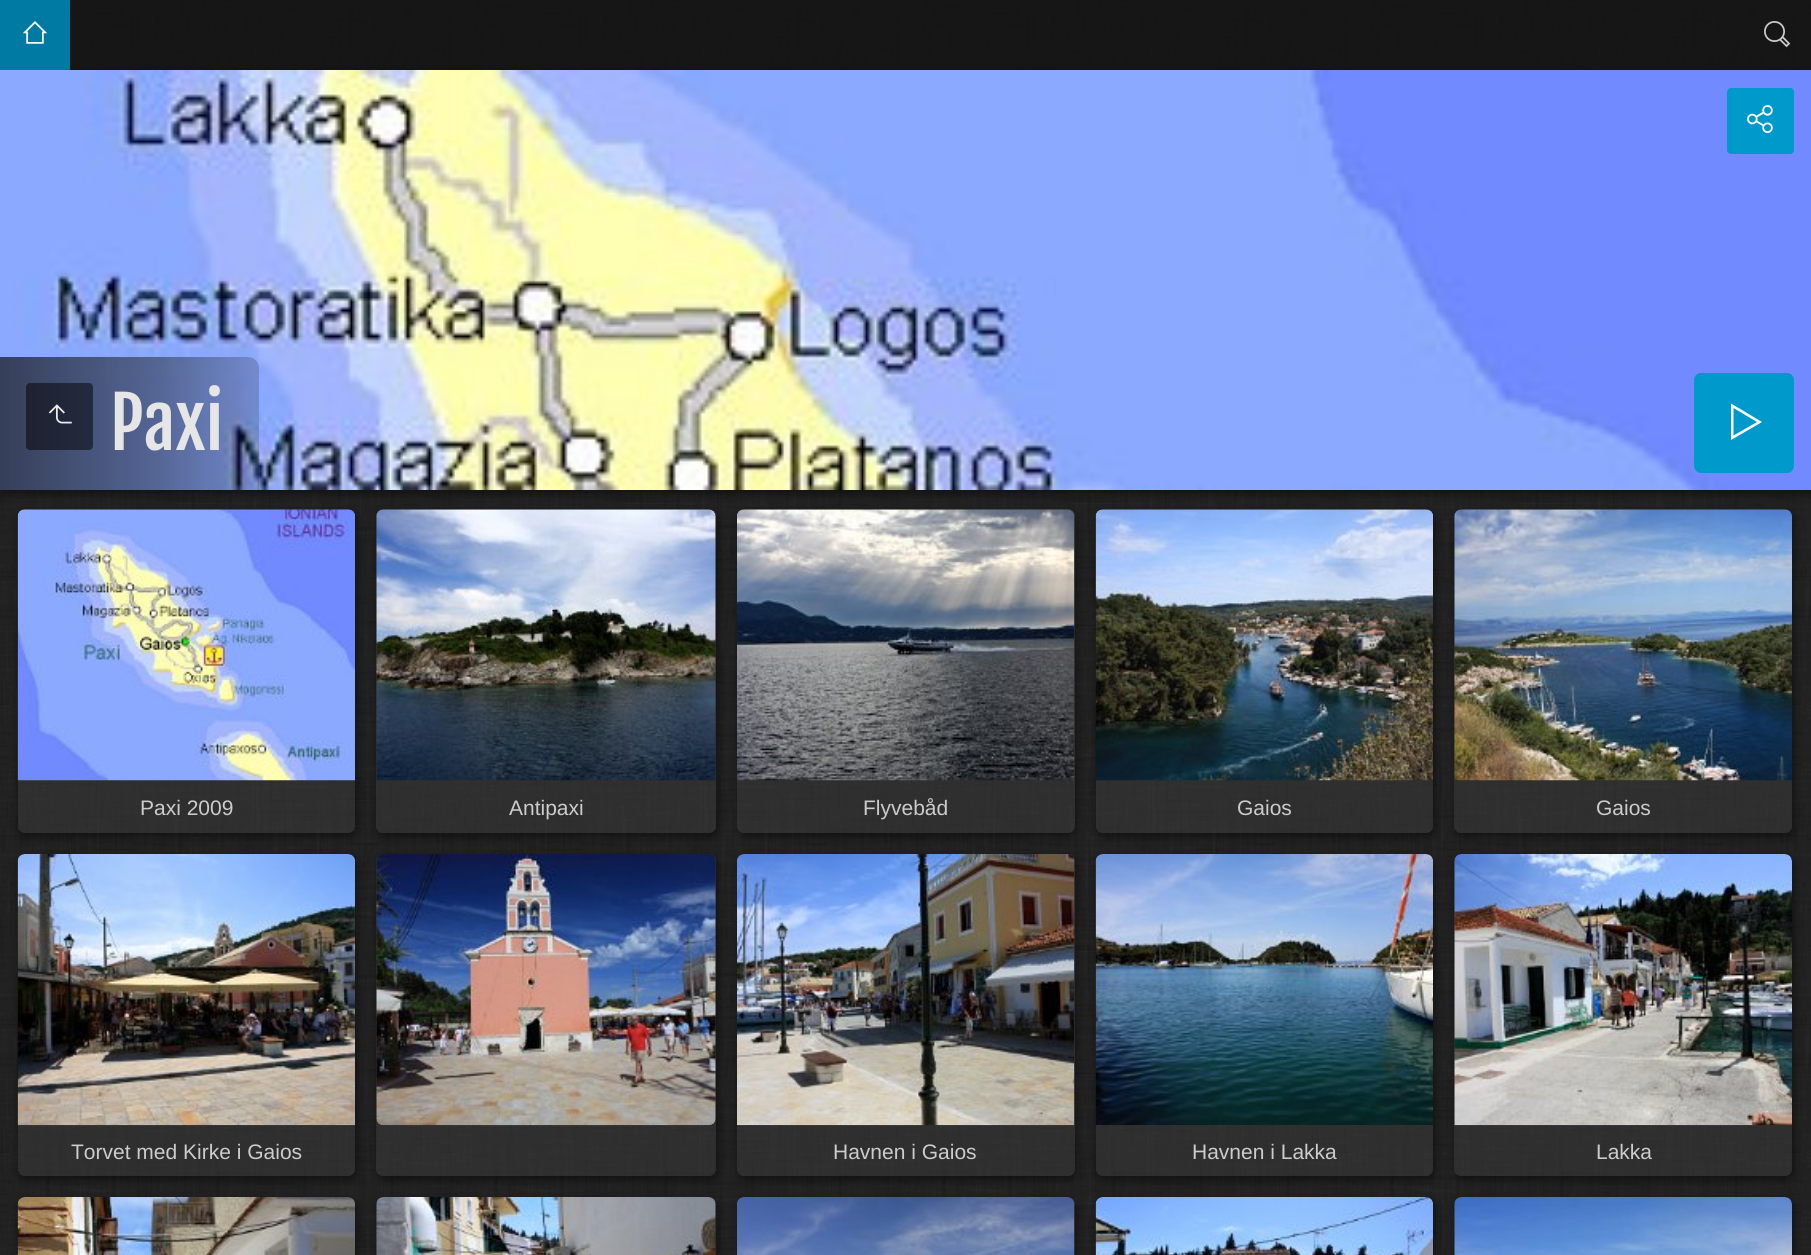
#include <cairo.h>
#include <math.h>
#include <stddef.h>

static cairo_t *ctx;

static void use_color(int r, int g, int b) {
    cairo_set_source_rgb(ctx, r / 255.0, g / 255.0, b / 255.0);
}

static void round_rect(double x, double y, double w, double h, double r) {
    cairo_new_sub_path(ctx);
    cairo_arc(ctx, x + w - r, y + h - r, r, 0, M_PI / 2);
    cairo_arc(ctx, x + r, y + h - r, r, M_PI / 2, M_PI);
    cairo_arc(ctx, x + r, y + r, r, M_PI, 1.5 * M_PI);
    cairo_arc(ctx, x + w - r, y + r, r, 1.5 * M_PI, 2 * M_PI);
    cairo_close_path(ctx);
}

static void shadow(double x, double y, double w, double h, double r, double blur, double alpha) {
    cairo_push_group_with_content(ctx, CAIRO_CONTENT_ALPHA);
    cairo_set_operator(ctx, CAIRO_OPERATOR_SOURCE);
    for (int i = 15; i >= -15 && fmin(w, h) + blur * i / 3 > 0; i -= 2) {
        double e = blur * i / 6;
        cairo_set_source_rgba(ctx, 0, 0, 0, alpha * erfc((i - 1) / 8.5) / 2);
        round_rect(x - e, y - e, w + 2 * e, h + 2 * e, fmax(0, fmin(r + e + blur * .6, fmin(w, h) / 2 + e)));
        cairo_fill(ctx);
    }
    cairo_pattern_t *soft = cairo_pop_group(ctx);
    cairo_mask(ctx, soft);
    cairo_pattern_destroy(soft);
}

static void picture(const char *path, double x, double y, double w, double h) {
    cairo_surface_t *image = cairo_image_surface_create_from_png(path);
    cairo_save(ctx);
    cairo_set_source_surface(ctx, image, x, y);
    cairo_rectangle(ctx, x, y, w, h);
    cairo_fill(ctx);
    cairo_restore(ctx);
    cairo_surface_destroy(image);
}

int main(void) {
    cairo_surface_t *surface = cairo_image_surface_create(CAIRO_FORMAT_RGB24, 1811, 1255);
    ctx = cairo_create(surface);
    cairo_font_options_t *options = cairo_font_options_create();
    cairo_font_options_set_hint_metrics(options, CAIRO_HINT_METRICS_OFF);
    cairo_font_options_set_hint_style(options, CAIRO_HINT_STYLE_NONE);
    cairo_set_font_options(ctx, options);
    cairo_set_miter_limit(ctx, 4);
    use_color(34, 34, 34);
    cairo_paint(ctx);
    picture("img1.png", 0, 0, 1811, 1255);
    cairo_set_source_rgba(ctx, 0.078, 0.078, 0.078, 0.8);
    cairo_rectangle(ctx, 70, 0, 1741, 70);
    cairo_fill(ctx);
    use_color(0, 0, 0);
    shadow(2, 74, 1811, 420, 0, 5, 0.5);
    use_color(0, 122, 163);
    cairo_rectangle(ctx, 0, 0, 70, 70);
    cairo_fill(ctx);
    picture("img2.png", 22, 21, 26, 23);
    picture("img3.png", 1764, 21, 27, 27);
    picture("img4.png", 0, 70, 1811, 420);
    cairo_set_source_rgba(ctx, 0, 0, 0, 0.5);
    round_rect(26, 383, 67, 67, 4);
    cairo_fill(ctx);
    picture("img5.png", 48, 404, 24, 20);
    cairo_select_font_face(ctx, "Fjalla One", CAIRO_FONT_SLANT_NORMAL, CAIRO_FONT_WEIGHT_NORMAL);
    cairo_set_font_size(ctx, 70);
    use_color(230, 230, 230);
    cairo_move_to(ctx, 110, 450);
    cairo_show_text(ctx, "Paxi");
    use_color(0, 153, 204);
    round_rect(1727, 88, 67, 66, 4);
    cairo_fill(ctx);
    picture("img6.png", 1747, 105, 26, 28);
    round_rect(1694, 373, 100, 100, 7);
    cairo_fill(ctx);
    use_color(255, 255, 255);
    cairo_new_path(ctx);
    cairo_move_to(ctx, 1733.5, 408);
    cairo_line_to(ctx, 1757, 422);
    cairo_line_to(ctx, 1733.5, 435.5);
    cairo_close_path(ctx);
    cairo_move_to(ctx, 1731, 403.5);
    cairo_line_to(ctx, 1731, 440);
    cairo_line_to(ctx, 1762, 422);
    cairo_close_path(ctx);
    cairo_fill(ctx);
    cairo_save(ctx);
    cairo_set_fill_rule(ctx, CAIRO_FILL_RULE_EVEN_ODD);
    cairo_new_path(ctx);
    cairo_move_to(ctx, 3, 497);
    cairo_line_to(ctx, 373, 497);
    cairo_line_to(ctx, 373, 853);
    cairo_line_to(ctx, 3, 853);
    cairo_close_path(ctx);
    cairo_move_to(ctx, 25, 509);
    cairo_line_to(ctx, 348, 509);
    cairo_curve_to(ctx, 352, 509, 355, 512, 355, 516);
    cairo_line_to(ctx, 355, 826);
    cairo_curve_to(ctx, 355, 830, 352, 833, 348, 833);
    cairo_line_to(ctx, 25, 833);
    cairo_curve_to(ctx, 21, 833, 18, 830, 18, 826);
    cairo_line_to(ctx, 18, 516);
    cairo_curve_to(ctx, 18, 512, 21, 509, 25, 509);
    cairo_close_path(ctx);
    cairo_clip(ctx);
    use_color(0, 0, 0);
    shadow(19, 513, 338, 324, 7, 5, 0.5);
    cairo_restore(ctx);
    cairo_set_source_rgba(ctx, 0.267, 0.267, 0.267, 0.4);
    round_rect(18, 509, 337, 324, 7);
    cairo_fill(ctx);
    picture("img7.png", 17, 509, 338, 272);
    cairo_select_font_face(ctx, "Liberation Sans", CAIRO_FONT_SLANT_NORMAL, CAIRO_FONT_WEIGHT_NORMAL);
    cairo_set_font_size(ctx, 21);
    use_color(204, 204, 204);
    cairo_move_to(ctx, 140, 815);
    cairo_show_text(ctx, "Paxi 2009");
    cairo_save(ctx);
    cairo_set_fill_rule(ctx, CAIRO_FILL_RULE_EVEN_ODD);
    cairo_new_path(ctx);
    cairo_move_to(ctx, 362, 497);
    cairo_line_to(ctx, 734, 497);
    cairo_line_to(ctx, 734, 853);
    cairo_line_to(ctx, 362, 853);
    cairo_close_path(ctx);
    cairo_move_to(ctx, 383, 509);
    cairo_line_to(ctx, 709, 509);
    cairo_curve_to(ctx, 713, 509, 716, 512, 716, 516);
    cairo_line_to(ctx, 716, 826);
    cairo_curve_to(ctx, 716, 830, 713, 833, 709, 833);
    cairo_line_to(ctx, 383, 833);
    cairo_curve_to(ctx, 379, 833, 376, 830, 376, 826);
    cairo_line_to(ctx, 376, 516);
    cairo_curve_to(ctx, 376, 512, 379, 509, 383, 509);
    cairo_close_path(ctx);
    cairo_clip(ctx);
    use_color(0, 0, 0);
    shadow(378, 513, 340, 324, 7, 5, 0.5);
    cairo_restore(ctx);
    cairo_set_source_rgba(ctx, 0.267, 0.267, 0.267, 0.4);
    round_rect(376, 509, 340, 324, 7);
    cairo_fill(ctx);
    picture("img8.png", 376, 509, 340, 272);
    use_color(204, 204, 204);
    cairo_move_to(ctx, 509, 815);
    cairo_show_text(ctx, "Antipaxi");
    cairo_save(ctx);
    cairo_set_fill_rule(ctx, CAIRO_FILL_RULE_EVEN_ODD);
    cairo_new_path(ctx);
    cairo_move_to(ctx, 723, 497);
    cairo_line_to(ctx, 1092, 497);
    cairo_line_to(ctx, 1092, 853);
    cairo_line_to(ctx, 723, 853);
    cairo_close_path(ctx);
    cairo_move_to(ctx, 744, 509);
    cairo_line_to(ctx, 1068, 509);
    cairo_curve_to(ctx, 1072, 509, 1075, 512, 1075, 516);
    cairo_line_to(ctx, 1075, 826);
    cairo_curve_to(ctx, 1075, 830, 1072, 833, 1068, 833);
    cairo_line_to(ctx, 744, 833);
    cairo_curve_to(ctx, 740, 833, 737, 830, 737, 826);
    cairo_line_to(ctx, 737, 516);
    cairo_curve_to(ctx, 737, 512, 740, 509, 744, 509);
    cairo_close_path(ctx);
    cairo_clip(ctx);
    use_color(0, 0, 0);
    shadow(739, 513, 337, 324, 7, 5, 0.5);
    cairo_restore(ctx);
    cairo_set_source_rgba(ctx, 0.267, 0.267, 0.267, 0.4);
    round_rect(737, 509, 338, 324, 7);
    cairo_fill(ctx);
    picture("img9.png", 737, 509, 338, 272);
    use_color(204, 204, 204);
    cairo_move_to(ctx, 863, 815);
    cairo_show_text(ctx, "Flyvebåd");
    cairo_save(ctx);
    cairo_set_fill_rule(ctx, CAIRO_FILL_RULE_EVEN_ODD);
    cairo_new_path(ctx);
    cairo_move_to(ctx, 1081, 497);
    cairo_line_to(ctx, 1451, 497);
    cairo_line_to(ctx, 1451, 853);
    cairo_line_to(ctx, 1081, 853);
    cairo_close_path(ctx);
    cairo_move_to(ctx, 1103, 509);
    cairo_line_to(ctx, 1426, 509);
    cairo_curve_to(ctx, 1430, 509, 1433, 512, 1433, 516);
    cairo_line_to(ctx, 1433, 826);
    cairo_curve_to(ctx, 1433, 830, 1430, 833, 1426, 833);
    cairo_line_to(ctx, 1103, 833);
    cairo_curve_to(ctx, 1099, 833, 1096, 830, 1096, 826);
    cairo_line_to(ctx, 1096, 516);
    cairo_curve_to(ctx, 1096, 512, 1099, 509, 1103, 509);
    cairo_close_path(ctx);
    cairo_clip(ctx);
    use_color(0, 0, 0);
    shadow(1097, 513, 338, 324, 7, 5, 0.5);
    cairo_restore(ctx);
    cairo_set_source_rgba(ctx, 0.267, 0.267, 0.267, 0.4);
    round_rect(1096, 509, 337, 324, 7);
    cairo_fill(ctx);
    picture("img10.png", 1095, 509, 338, 272);
    use_color(204, 204, 204);
    cairo_move_to(ctx, 1237, 815);
    cairo_show_text(ctx, "Gaios");
    cairo_save(ctx);
    cairo_set_fill_rule(ctx, CAIRO_FILL_RULE_EVEN_ODD);
    cairo_new_path(ctx);
    cairo_move_to(ctx, 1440, 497);
    cairo_line_to(ctx, 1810, 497);
    cairo_line_to(ctx, 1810, 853);
    cairo_line_to(ctx, 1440, 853);
    cairo_close_path(ctx);
    cairo_move_to(ctx, 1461, 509);
    cairo_line_to(ctx, 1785, 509);
    cairo_curve_to(ctx, 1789, 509, 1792, 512, 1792, 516);
    cairo_line_to(ctx, 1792, 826);
    cairo_curve_to(ctx, 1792, 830, 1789, 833, 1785, 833);
    cairo_line_to(ctx, 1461, 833);
    cairo_curve_to(ctx, 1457, 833, 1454, 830, 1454, 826);
    cairo_line_to(ctx, 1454, 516);
    cairo_curve_to(ctx, 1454, 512, 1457, 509, 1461, 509);
    cairo_close_path(ctx);
    cairo_clip(ctx);
    use_color(0, 0, 0);
    shadow(1456, 513, 338, 324, 7, 5, 0.5);
    cairo_restore(ctx);
    cairo_set_source_rgba(ctx, 0.267, 0.267, 0.267, 0.4);
    round_rect(1454, 509, 338, 324, 7);
    cairo_fill(ctx);
    picture("img11.png", 1454, 509, 338, 272);
    use_color(204, 204, 204);
    cairo_move_to(ctx, 1596, 815);
    cairo_show_text(ctx, "Gaios");
    cairo_save(ctx);
    cairo_set_fill_rule(ctx, CAIRO_FILL_RULE_EVEN_ODD);
    cairo_new_path(ctx);
    cairo_move_to(ctx, 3, 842);
    cairo_line_to(ctx, 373, 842);
    cairo_line_to(ctx, 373, 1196);
    cairo_line_to(ctx, 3, 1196);
    cairo_close_path(ctx);
    cairo_move_to(ctx, 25, 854);
    cairo_line_to(ctx, 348, 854);
    cairo_curve_to(ctx, 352, 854, 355, 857, 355, 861);
    cairo_line_to(ctx, 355, 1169);
    cairo_curve_to(ctx, 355, 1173, 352, 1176, 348, 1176);
    cairo_line_to(ctx, 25, 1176);
    cairo_curve_to(ctx, 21, 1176, 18, 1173, 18, 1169);
    cairo_line_to(ctx, 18, 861);
    cairo_curve_to(ctx, 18, 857, 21, 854, 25, 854);
    cairo_close_path(ctx);
    cairo_clip(ctx);
    use_color(0, 0, 0);
    shadow(19, 858, 338, 322, 7, 5, 0.5);
    cairo_restore(ctx);
    cairo_set_source_rgba(ctx, 0.267, 0.267, 0.267, 0.4);
    round_rect(18, 854, 337, 322, 7);
    cairo_fill(ctx);
    picture("img12.png", 17, 854, 338, 272);
    use_color(204, 204, 204);
    cairo_move_to(ctx, 71, 1159);
    cairo_show_text(ctx, "Torvet med Kirke i Gaios");
    cairo_save(ctx);
    cairo_set_fill_rule(ctx, CAIRO_FILL_RULE_EVEN_ODD);
    cairo_new_path(ctx);
    cairo_move_to(ctx, 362, 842);
    cairo_line_to(ctx, 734, 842);
    cairo_line_to(ctx, 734, 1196);
    cairo_line_to(ctx, 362, 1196);
    cairo_close_path(ctx);
    cairo_move_to(ctx, 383, 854);
    cairo_line_to(ctx, 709, 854);
    cairo_curve_to(ctx, 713, 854, 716, 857, 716, 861);
    cairo_line_to(ctx, 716, 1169);
    cairo_curve_to(ctx, 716, 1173, 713, 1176, 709, 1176);
    cairo_line_to(ctx, 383, 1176);
    cairo_curve_to(ctx, 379, 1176, 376, 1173, 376, 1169);
    cairo_line_to(ctx, 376, 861);
    cairo_curve_to(ctx, 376, 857, 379, 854, 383, 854);
    cairo_close_path(ctx);
    cairo_clip(ctx);
    use_color(0, 0, 0);
    shadow(378, 858, 340, 322, 7, 5, 0.5);
    cairo_restore(ctx);
    cairo_set_source_rgba(ctx, 0.267, 0.267, 0.267, 0.4);
    round_rect(376, 854, 340, 322, 7);
    cairo_fill(ctx);
    picture("img13.png", 376, 854, 340, 272);
    cairo_save(ctx);
    cairo_set_fill_rule(ctx, CAIRO_FILL_RULE_EVEN_ODD);
    cairo_new_path(ctx);
    cairo_move_to(ctx, 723, 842);
    cairo_line_to(ctx, 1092, 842);
    cairo_line_to(ctx, 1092, 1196);
    cairo_line_to(ctx, 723, 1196);
    cairo_close_path(ctx);
    cairo_move_to(ctx, 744, 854);
    cairo_line_to(ctx, 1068, 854);
    cairo_curve_to(ctx, 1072, 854, 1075, 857, 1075, 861);
    cairo_line_to(ctx, 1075, 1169);
    cairo_curve_to(ctx, 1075, 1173, 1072, 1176, 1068, 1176);
    cairo_line_to(ctx, 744, 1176);
    cairo_curve_to(ctx, 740, 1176, 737, 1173, 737, 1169);
    cairo_line_to(ctx, 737, 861);
    cairo_curve_to(ctx, 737, 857, 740, 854, 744, 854);
    cairo_close_path(ctx);
    cairo_clip(ctx);
    use_color(0, 0, 0);
    shadow(739, 858, 337, 322, 7, 5, 0.5);
    cairo_restore(ctx);
    round_rect(737, 854, 338, 322, 7);
    cairo_fill(ctx);
    picture("img14.png", 737, 854, 338, 272);
    use_color(204, 204, 204);
    cairo_move_to(ctx, 833, 1159);
    cairo_show_text(ctx, "Havnen i Gaios");
    cairo_save(ctx);
    cairo_set_fill_rule(ctx, CAIRO_FILL_RULE_EVEN_ODD);
    cairo_new_path(ctx);
    cairo_move_to(ctx, 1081, 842);
    cairo_line_to(ctx, 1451, 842);
    cairo_line_to(ctx, 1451, 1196);
    cairo_line_to(ctx, 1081, 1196);
    cairo_close_path(ctx);
    cairo_move_to(ctx, 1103, 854);
    cairo_line_to(ctx, 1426, 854);
    cairo_curve_to(ctx, 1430, 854, 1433, 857, 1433, 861);
    cairo_line_to(ctx, 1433, 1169);
    cairo_curve_to(ctx, 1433, 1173, 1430, 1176, 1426, 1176);
    cairo_line_to(ctx, 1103, 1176);
    cairo_curve_to(ctx, 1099, 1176, 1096, 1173, 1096, 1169);
    cairo_line_to(ctx, 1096, 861);
    cairo_curve_to(ctx, 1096, 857, 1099, 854, 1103, 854);
    cairo_close_path(ctx);
    cairo_clip(ctx);
    use_color(0, 0, 0);
    shadow(1097, 858, 338, 322, 7, 5, 0.5);
    cairo_restore(ctx);
    cairo_set_source_rgba(ctx, 0.267, 0.267, 0.267, 0.4);
    round_rect(1096, 854, 337, 322, 7);
    cairo_fill(ctx);
    picture("img15.png", 1095, 854, 338, 271);
    use_color(204, 204, 204);
    cairo_move_to(ctx, 1192, 1159);
    cairo_show_text(ctx, "Havnen i Lakka");
    cairo_save(ctx);
    cairo_set_fill_rule(ctx, CAIRO_FILL_RULE_EVEN_ODD);
    cairo_new_path(ctx);
    cairo_move_to(ctx, 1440, 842);
    cairo_line_to(ctx, 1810, 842);
    cairo_line_to(ctx, 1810, 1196);
    cairo_line_to(ctx, 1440, 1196);
    cairo_close_path(ctx);
    cairo_move_to(ctx, 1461, 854);
    cairo_line_to(ctx, 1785, 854);
    cairo_curve_to(ctx, 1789, 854, 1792, 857, 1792, 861);
    cairo_line_to(ctx, 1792, 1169);
    cairo_curve_to(ctx, 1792, 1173, 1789, 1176, 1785, 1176);
    cairo_line_to(ctx, 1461, 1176);
    cairo_curve_to(ctx, 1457, 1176, 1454, 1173, 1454, 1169);
    cairo_line_to(ctx, 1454, 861);
    cairo_curve_to(ctx, 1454, 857, 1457, 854, 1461, 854);
    cairo_close_path(ctx);
    cairo_clip(ctx);
    use_color(0, 0, 0);
    shadow(1456, 858, 338, 322, 7, 5, 0.5);
    cairo_restore(ctx);
    cairo_set_source_rgba(ctx, 0.267, 0.267, 0.267, 0.4);
    round_rect(1454, 854, 338, 322, 7);
    cairo_fill(ctx);
    picture("img16.png", 1454, 854, 338, 272);
    use_color(204, 204, 204);
    cairo_move_to(ctx, 1596, 1159);
    cairo_show_text(ctx, "Lakka");
    use_color(0, 0, 0);
    shadow(19, 1201, 338, 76, 7, 5, 0.5);
    cairo_set_source_rgba(ctx, 0.267, 0.267, 0.267, 0.4);
    round_rect(18, 1197, 337, 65, 7);
    cairo_fill(ctx);
    picture("img17.png", 17, 1197, 338, 58);
    use_color(0, 0, 0);
    shadow(378, 1201, 340, 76, 7, 5, 0.5);
    cairo_set_source_rgba(ctx, 0.267, 0.267, 0.267, 0.4);
    round_rect(376, 1197, 340, 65, 7);
    cairo_fill(ctx);
    picture("img18.png", 376, 1197, 340, 58);
    use_color(0, 0, 0);
    shadow(739, 1201, 337, 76, 7, 5, 0.5);
    cairo_set_source_rgba(ctx, 0.267, 0.267, 0.267, 0.4);
    round_rect(737, 1197, 338, 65, 7);
    cairo_fill(ctx);
    picture("img19.png", 737, 1197, 338, 58);
    use_color(0, 0, 0);
    shadow(1097, 1201, 338, 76, 7, 5, 0.5);
    cairo_set_source_rgba(ctx, 0.267, 0.267, 0.267, 0.4);
    round_rect(1096, 1197, 337, 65, 7);
    cairo_fill(ctx);
    picture("img20.png", 1095, 1197, 338, 58);
    use_color(0, 0, 0);
    shadow(1456, 1201, 338, 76, 7, 5, 0.5);
    cairo_set_source_rgba(ctx, 0.267, 0.267, 0.267, 0.4);
    round_rect(1454, 1197, 338, 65, 7);
    cairo_fill(ctx);
    picture("img21.png", 1454, 1197, 338, 58);
    cairo_surface_write_to_png(surface, "result.png");
    cairo_font_options_destroy(options);
    cairo_destroy(ctx);
    cairo_surface_destroy(surface);
    return 0;
}
